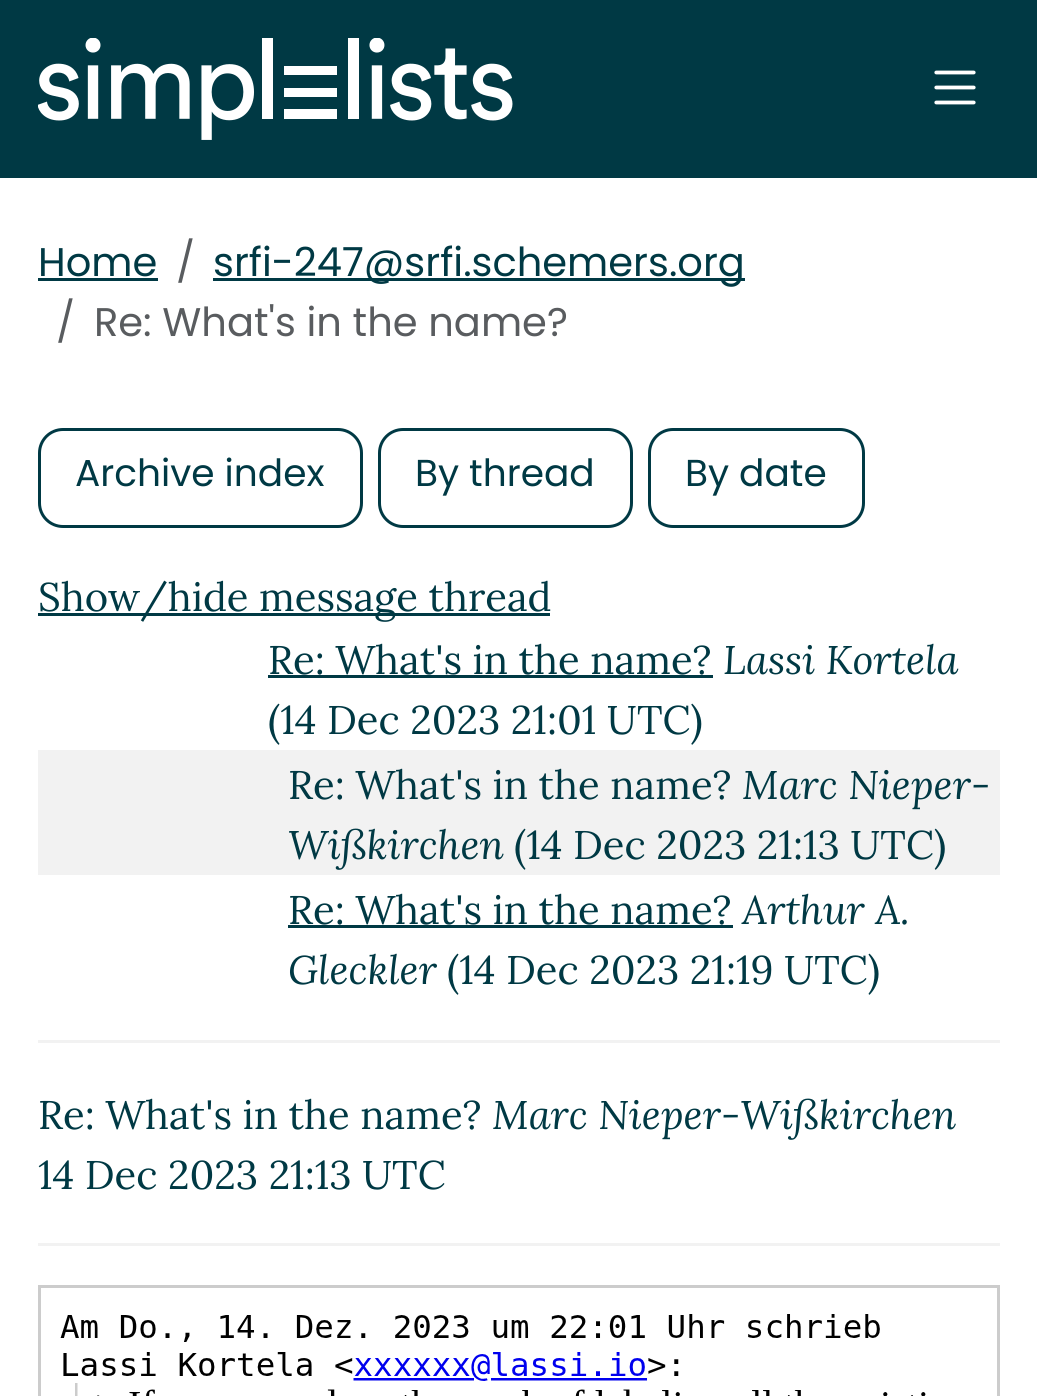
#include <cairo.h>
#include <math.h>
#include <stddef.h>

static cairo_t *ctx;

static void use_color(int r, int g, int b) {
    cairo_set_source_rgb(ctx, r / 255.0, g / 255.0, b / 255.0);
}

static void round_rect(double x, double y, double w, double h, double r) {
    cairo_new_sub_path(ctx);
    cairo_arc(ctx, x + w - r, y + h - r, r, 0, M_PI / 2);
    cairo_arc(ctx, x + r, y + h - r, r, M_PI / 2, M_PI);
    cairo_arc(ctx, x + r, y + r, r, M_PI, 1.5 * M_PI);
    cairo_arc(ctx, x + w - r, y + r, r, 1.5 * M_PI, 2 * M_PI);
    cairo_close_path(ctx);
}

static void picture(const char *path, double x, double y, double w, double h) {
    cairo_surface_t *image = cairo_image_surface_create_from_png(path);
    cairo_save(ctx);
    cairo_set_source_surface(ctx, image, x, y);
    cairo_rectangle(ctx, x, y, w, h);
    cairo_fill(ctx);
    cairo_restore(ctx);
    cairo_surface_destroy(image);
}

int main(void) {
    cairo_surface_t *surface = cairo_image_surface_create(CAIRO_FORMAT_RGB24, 1037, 1396);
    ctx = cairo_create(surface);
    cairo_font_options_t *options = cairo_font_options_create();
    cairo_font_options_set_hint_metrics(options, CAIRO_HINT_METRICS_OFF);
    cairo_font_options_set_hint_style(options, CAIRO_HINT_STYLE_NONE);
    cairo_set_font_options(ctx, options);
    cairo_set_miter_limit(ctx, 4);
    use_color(255, 255, 255);
    cairo_paint(ctx);
    use_color(0, 57, 68);
    cairo_rectangle(ctx, 0, 0, 1037, 178);
    cairo_fill(ctx);
    picture("img1.png", 38, 38, 475, 102);
    picture("img2.png", 934, 70, 42, 35);
    cairo_select_font_face(ctx, "Poppins", CAIRO_FONT_SLANT_NORMAL, CAIRO_FONT_WEIGHT_NORMAL);
    cairo_set_font_size(ctx, 40);
    cairo_move_to(ctx, 38, 276);
    cairo_show_text(ctx, "Home");
    cairo_rectangle(ctx, 38, 278, 120, 3);
    cairo_fill(ctx);
    use_color(89, 92, 95);
    cairo_move_to(ctx, 176, 276);
    cairo_show_text(ctx, "/");
    use_color(0, 57, 68);
    cairo_rectangle(ctx, 213, 278, 532, 3);
    cairo_fill(ctx);
    cairo_move_to(ctx, 213, 276);
    cairo_show_text(ctx, "srfi-247@srfi.schemers.org");
    use_color(89, 92, 95);
    cairo_move_to(ctx, 56, 336);
    cairo_show_text(ctx, "/");
    cairo_move_to(ctx, 94, 336);
    cairo_show_text(ctx, "Re: What's in the name?");
    round_rect(39.5, 429.5, 322, 97, 23.5);
    use_color(0, 57, 68);
    cairo_set_line_width(ctx, 3);
    cairo_stroke(ctx);
    cairo_set_font_size(ctx, 37.5);
    cairo_move_to(ctx, 75, 486);
    cairo_show_text(ctx, "Archive index");
    round_rect(379.5, 429.5, 252, 97, 23.5);
    cairo_stroke(ctx);
    cairo_move_to(ctx, 415, 486);
    cairo_show_text(ctx, "By thread");
    round_rect(649.5, 429.5, 214, 97, 23.5);
    cairo_stroke(ctx);
    cairo_move_to(ctx, 685, 486);
    cairo_show_text(ctx, "By date");
    cairo_rectangle(ctx, 38, 613, 512, 3);
    cairo_fill(ctx);
    cairo_select_font_face(ctx, "Lora", CAIRO_FONT_SLANT_NORMAL, CAIRO_FONT_WEIGHT_NORMAL);
    cairo_set_font_size(ctx, 40);
    cairo_move_to(ctx, 38, 611);
    cairo_show_text(ctx, "Show/hide message thread");
    cairo_move_to(ctx, 268, 674);
    cairo_show_text(ctx, "Re: What's in the name?");
    cairo_rectangle(ctx, 268, 675, 445, 3);
    cairo_fill(ctx);
    cairo_select_font_face(ctx, "Lora", CAIRO_FONT_SLANT_ITALIC, CAIRO_FONT_WEIGHT_NORMAL);
    cairo_move_to(ctx, 723, 674);
    cairo_show_text(ctx, "Lassi Kortela");
    cairo_select_font_face(ctx, "Lora", CAIRO_FONT_SLANT_NORMAL, CAIRO_FONT_WEIGHT_NORMAL);
    cairo_move_to(ctx, 268, 734);
    cairo_show_text(ctx, "(14 Dec 2023 21:01 UTC)");
    use_color(242, 242, 242);
    cairo_rectangle(ctx, 38, 750, 962, 125);
    cairo_fill(ctx);
    use_color(0, 57, 68);
    cairo_move_to(ctx, 288, 799);
    cairo_show_text(ctx, "Re: What's in the name?");
    cairo_select_font_face(ctx, "Lora", CAIRO_FONT_SLANT_ITALIC, CAIRO_FONT_WEIGHT_NORMAL);
    cairo_move_to(ctx, 742, 799);
    cairo_show_text(ctx, "Marc Nieper-");
    cairo_move_to(ctx, 288, 859);
    cairo_show_text(ctx, "Wißkirchen");
    cairo_select_font_face(ctx, "Lora", CAIRO_FONT_SLANT_NORMAL, CAIRO_FONT_WEIGHT_NORMAL);
    cairo_move_to(ctx, 514, 859);
    cairo_show_text(ctx, "(14 Dec 2023 21:13 UTC)");
    cairo_move_to(ctx, 288, 924);
    cairo_show_text(ctx, "Re: What's in the name?");
    cairo_rectangle(ctx, 288, 925, 445, 3);
    cairo_fill(ctx);
    cairo_select_font_face(ctx, "Lora", CAIRO_FONT_SLANT_ITALIC, CAIRO_FONT_WEIGHT_NORMAL);
    cairo_move_to(ctx, 742, 924);
    cairo_show_text(ctx, "Arthur A.");
    cairo_move_to(ctx, 288, 984);
    cairo_show_text(ctx, "Gleckler");
    cairo_select_font_face(ctx, "Lora", CAIRO_FONT_SLANT_NORMAL, CAIRO_FONT_WEIGHT_NORMAL);
    cairo_move_to(ctx, 447, 984);
    cairo_show_text(ctx, "(14 Dec 2023 21:19 UTC)");
    use_color(242, 242, 242);
    cairo_rectangle(ctx, 38, 1040, 962, 3);
    cairo_fill(ctx);
    use_color(0, 57, 68);
    cairo_move_to(ctx, 38, 1129);
    cairo_show_text(ctx, "Re: What's in the name?");
    cairo_select_font_face(ctx, "Lora", CAIRO_FONT_SLANT_ITALIC, CAIRO_FONT_WEIGHT_NORMAL);
    cairo_move_to(ctx, 492, 1129);
    cairo_show_text(ctx, "Marc Nieper-Wißkirchen");
    cairo_select_font_face(ctx, "Lora", CAIRO_FONT_SLANT_NORMAL, CAIRO_FONT_WEIGHT_NORMAL);
    cairo_move_to(ctx, 38, 1189);
    cairo_show_text(ctx, "14 Dec 2023 21:13 UTC");
    use_color(242, 242, 242);
    cairo_rectangle(ctx, 38, 1243, 962, 3);
    cairo_fill(ctx);
    cairo_rectangle(ctx, 39.5, 1286.5, 959, 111);
    use_color(204, 204, 204);
    cairo_stroke(ctx);
    picture("img3.png", 60, 1314, 866, 82);
    cairo_surface_write_to_png(surface, "result.png");
    cairo_font_options_destroy(options);
    cairo_destroy(ctx);
    cairo_surface_destroy(surface);
    return 0;
}
